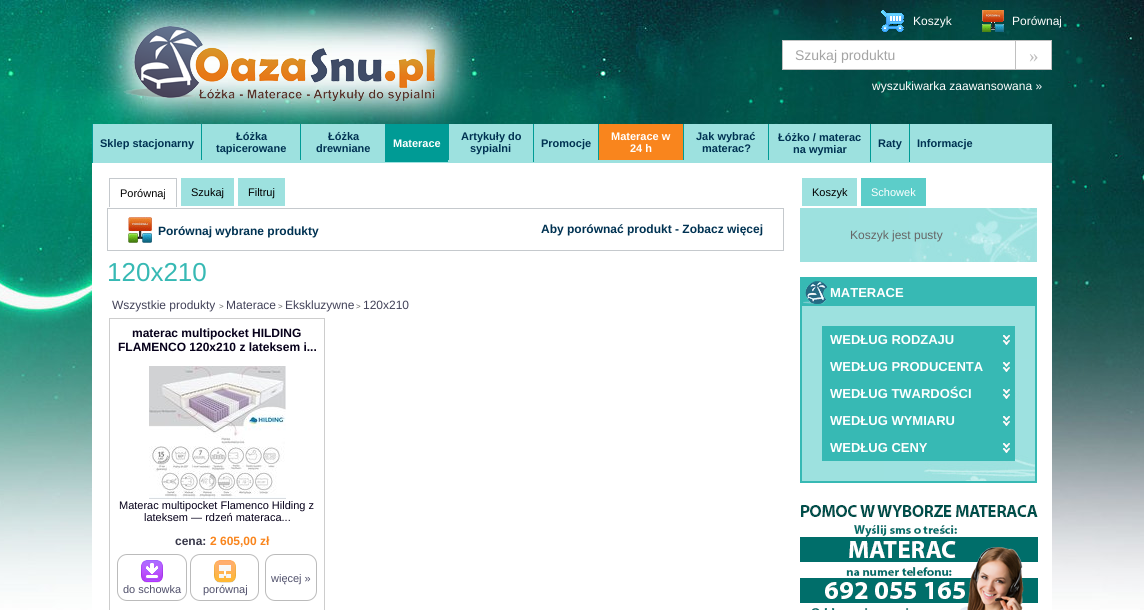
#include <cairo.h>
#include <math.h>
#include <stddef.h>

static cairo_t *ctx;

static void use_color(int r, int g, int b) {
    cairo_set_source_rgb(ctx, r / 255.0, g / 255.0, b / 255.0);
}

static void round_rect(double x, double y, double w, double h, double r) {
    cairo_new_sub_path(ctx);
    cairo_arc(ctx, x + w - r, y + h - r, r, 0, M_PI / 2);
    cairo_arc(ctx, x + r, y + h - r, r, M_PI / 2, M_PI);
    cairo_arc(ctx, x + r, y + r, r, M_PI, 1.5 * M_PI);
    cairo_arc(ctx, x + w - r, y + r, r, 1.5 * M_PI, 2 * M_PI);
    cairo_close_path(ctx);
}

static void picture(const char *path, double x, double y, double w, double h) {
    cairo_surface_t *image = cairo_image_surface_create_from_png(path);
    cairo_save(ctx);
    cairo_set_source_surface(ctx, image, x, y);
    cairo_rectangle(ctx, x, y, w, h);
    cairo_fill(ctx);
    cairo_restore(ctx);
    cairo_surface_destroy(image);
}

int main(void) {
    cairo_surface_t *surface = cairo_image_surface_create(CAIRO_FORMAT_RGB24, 1144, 610);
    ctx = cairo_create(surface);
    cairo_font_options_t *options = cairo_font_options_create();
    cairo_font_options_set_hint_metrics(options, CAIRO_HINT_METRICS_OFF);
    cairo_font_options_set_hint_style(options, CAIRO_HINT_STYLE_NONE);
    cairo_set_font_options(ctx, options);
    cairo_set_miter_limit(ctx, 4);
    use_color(255, 255, 255);
    cairo_paint(ctx);
    picture("img1.png", 0, 0, 1144, 610);
    picture("img2.png", 123, 26, 312, 75);
    picture("img3.png", 881, 10, 23, 22);
    cairo_select_font_face(ctx, "Liberation Sans", CAIRO_FONT_SLANT_NORMAL, CAIRO_FONT_WEIGHT_NORMAL);
    cairo_set_font_size(ctx, 12);
    use_color(255, 255, 255);
    cairo_move_to(ctx, 913, 25);
    cairo_show_text(ctx, "Koszyk");
    picture("img4.png", 982, 10, 22, 22);
    cairo_move_to(ctx, 1012, 25);
    cairo_show_text(ctx, "Porównaj");
    cairo_rectangle(ctx, 783, 41, 232, 28);
    cairo_fill(ctx);
    use_color(191, 193, 193);
    cairo_rectangle(ctx, 782, 40, 233, 1);
    cairo_fill(ctx);
    cairo_rectangle(ctx, 782, 69, 233, 1);
    cairo_fill(ctx);
    cairo_rectangle(ctx, 782, 40, 1, 30);
    cairo_fill(ctx);
    cairo_set_font_size(ctx, 14);
    use_color(164, 164, 164);
    cairo_move_to(ctx, 795, 60);
    cairo_show_text(ctx, "Szukaj produktu");
    use_color(255, 255, 255);
    cairo_rectangle(ctx, 1015.5, 40.5, 36, 29);
    cairo_fill_preserve(ctx);
    use_color(192, 192, 192);
    cairo_set_line_width(ctx, 1);
    cairo_stroke(ctx);
    cairo_select_font_face(ctx, "Liberation Serif", CAIRO_FONT_SLANT_NORMAL, CAIRO_FONT_WEIGHT_NORMAL);
    cairo_set_font_size(ctx, 19);
    use_color(189, 188, 188);
    cairo_move_to(ctx, 1029, 62);
    cairo_show_text(ctx, "»");
    cairo_select_font_face(ctx, "Liberation Sans", CAIRO_FONT_SLANT_NORMAL, CAIRO_FONT_WEIGHT_NORMAL);
    cairo_set_font_size(ctx, 12);
    use_color(255, 255, 255);
    cairo_move_to(ctx, 872, 90);
    cairo_show_text(ctx, "wyszukiwarka zaawansowana »");
    cairo_rectangle(ctx, 92, 163, 960, 447);
    cairo_fill(ctx);
    use_color(157, 225, 223);
    cairo_rectangle(ctx, 93, 124, 959, 39);
    cairo_fill(ctx);
    use_color(0, 155, 149);
    cairo_rectangle(ctx, 92, 124, 1, 39);
    cairo_fill(ctx);
    cairo_select_font_face(ctx, "Liberation Sans", CAIRO_FONT_SLANT_NORMAL, CAIRO_FONT_WEIGHT_BOLD);
    cairo_set_font_size(ctx, 11);
    use_color(0, 50, 82);
    cairo_move_to(ctx, 100, 147);
    cairo_show_text(ctx, "Sklep stacjonarny");
    use_color(0, 155, 149);
    cairo_rectangle(ctx, 201, 124, 1, 36);
    cairo_fill(ctx);
    use_color(0, 50, 82);
    cairo_move_to(ctx, 236, 140);
    cairo_show_text(ctx, "Łóżka");
    cairo_move_to(ctx, 216, 152);
    cairo_show_text(ctx, "tapicerowane");
    use_color(0, 155, 149);
    cairo_rectangle(ctx, 300, 124, 1, 36);
    cairo_fill(ctx);
    use_color(0, 50, 82);
    cairo_move_to(ctx, 328, 140);
    cairo_show_text(ctx, "Łóżka");
    cairo_move_to(ctx, 316, 152);
    cairo_show_text(ctx, "drewniane");
    use_color(0, 155, 149);
    cairo_rectangle(ctx, 385, 124, 63, 38);
    cairo_fill(ctx);
    use_color(255, 255, 255);
    cairo_move_to(ctx, 393, 147);
    cairo_show_text(ctx, "Materace");
    use_color(0, 155, 149);
    cairo_rectangle(ctx, 448, 124, 1, 36);
    cairo_fill(ctx);
    use_color(0, 50, 82);
    cairo_move_to(ctx, 461, 140);
    cairo_show_text(ctx, "Artykuły do");
    cairo_move_to(ctx, 470, 152);
    cairo_show_text(ctx, "sypialni");
    use_color(0, 155, 149);
    cairo_rectangle(ctx, 533, 124, 1, 38);
    cairo_fill(ctx);
    use_color(0, 50, 82);
    cairo_move_to(ctx, 541, 147);
    cairo_show_text(ctx, "Promocje");
    use_color(249, 133, 29);
    cairo_rectangle(ctx, 599, 124, 84, 36);
    cairo_fill(ctx);
    use_color(0, 155, 149);
    cairo_rectangle(ctx, 598, 124, 1, 36);
    cairo_fill(ctx);
    use_color(255, 255, 255);
    cairo_move_to(ctx, 611, 140);
    cairo_show_text(ctx, "Materace w");
    cairo_move_to(ctx, 630, 152);
    cairo_show_text(ctx, "24 h");
    use_color(0, 155, 149);
    cairo_rectangle(ctx, 683, 124, 1, 36);
    cairo_fill(ctx);
    use_color(0, 50, 82);
    cairo_move_to(ctx, 696, 140);
    cairo_show_text(ctx, "Jak wybrać");
    cairo_move_to(ctx, 702, 152);
    cairo_show_text(ctx, "materac?");
    use_color(0, 155, 149);
    cairo_rectangle(ctx, 768, 124, 1, 36);
    cairo_fill(ctx);
    use_color(0, 50, 82);
    cairo_move_to(ctx, 778, 141);
    cairo_show_text(ctx, "Łóżko / materac");
    cairo_move_to(ctx, 793, 153);
    cairo_show_text(ctx, "na wymiar");
    use_color(0, 155, 149);
    cairo_rectangle(ctx, 870, 124, 1, 38);
    cairo_fill(ctx);
    use_color(0, 50, 82);
    cairo_move_to(ctx, 878, 147);
    cairo_show_text(ctx, "Raty");
    use_color(0, 155, 149);
    cairo_rectangle(ctx, 909, 124, 1, 38);
    cairo_fill(ctx);
    use_color(0, 50, 82);
    cairo_move_to(ctx, 917, 147);
    cairo_show_text(ctx, "Informacje");
    use_color(197, 201, 205);
    cairo_rectangle(ctx, 109, 178, 68, 1);
    cairo_fill(ctx);
    cairo_rectangle(ctx, 176, 178, 1, 29);
    cairo_fill(ctx);
    cairo_rectangle(ctx, 109, 178, 1, 29);
    cairo_fill(ctx);
    cairo_select_font_face(ctx, "Liberation Sans", CAIRO_FONT_SLANT_NORMAL, CAIRO_FONT_WEIGHT_NORMAL);
    use_color(0, 0, 0);
    cairo_move_to(ctx, 120, 197);
    cairo_show_text(ctx, "Porównaj");
    use_color(157, 225, 223);
    cairo_rectangle(ctx, 181, 178, 53, 28);
    cairo_fill(ctx);
    use_color(0, 0, 0);
    cairo_move_to(ctx, 191, 196);
    cairo_show_text(ctx, "Szukaj");
    use_color(157, 225, 223);
    cairo_rectangle(ctx, 238, 178, 47, 28);
    cairo_fill(ctx);
    use_color(0, 0, 0);
    cairo_move_to(ctx, 248, 196);
    cairo_show_text(ctx, "Filtruj");
    cairo_rectangle(ctx, 107.5, 208.5, 676, 42);
    use_color(197, 201, 205);
    cairo_stroke(ctx);
    picture("img5.png", 128, 217, 24, 26);
    cairo_select_font_face(ctx, "Liberation Sans", CAIRO_FONT_SLANT_NORMAL, CAIRO_FONT_WEIGHT_BOLD);
    cairo_set_font_size(ctx, 12);
    use_color(0, 50, 82);
    cairo_move_to(ctx, 158, 235);
    cairo_show_text(ctx, "Porównaj wybrane produkty");
    cairo_move_to(ctx, 541, 233);
    cairo_show_text(ctx, "Aby porównać produkt - Zobacz więcej");
    cairo_select_font_face(ctx, "Liberation Sans", CAIRO_FONT_SLANT_NORMAL, CAIRO_FONT_WEIGHT_NORMAL);
    cairo_set_font_size(ctx, 26);
    use_color(55, 185, 180);
    cairo_move_to(ctx, 107, 281);
    cairo_show_text(ctx, "120x210");
    cairo_set_font_size(ctx, 12);
    use_color(66, 66, 88);
    cairo_move_to(ctx, 112, 309);
    cairo_show_text(ctx, "Wszystkie produkty");
    cairo_set_font_size(ctx, 8);
    use_color(102, 102, 102);
    cairo_move_to(ctx, 219, 309);
    cairo_show_text(ctx, ">");
    cairo_set_font_size(ctx, 12);
    use_color(66, 66, 88);
    cairo_move_to(ctx, 226, 309);
    cairo_show_text(ctx, "Materace");
    cairo_set_font_size(ctx, 8);
    use_color(102, 102, 102);
    cairo_move_to(ctx, 278, 309);
    cairo_show_text(ctx, ">");
    cairo_set_font_size(ctx, 12);
    use_color(66, 66, 88);
    cairo_move_to(ctx, 285, 309);
    cairo_show_text(ctx, "Ekskluzywne");
    cairo_set_font_size(ctx, 8);
    use_color(102, 102, 102);
    cairo_move_to(ctx, 356, 309);
    cairo_show_text(ctx, ">");
    cairo_set_font_size(ctx, 12);
    use_color(66, 66, 88);
    cairo_move_to(ctx, 363, 309);
    cairo_show_text(ctx, "120x210");
    cairo_rectangle(ctx, 109.5, 318.5, 215, 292);
    use_color(205, 205, 205);
    cairo_stroke(ctx);
    cairo_select_font_face(ctx, "Liberation Sans", CAIRO_FONT_SLANT_NORMAL, CAIRO_FONT_WEIGHT_BOLD);
    use_color(6, 0, 26);
    cairo_move_to(ctx, 132, 337);
    cairo_show_text(ctx, "materac multipocket HILDING");
    cairo_move_to(ctx, 118, 351);
    cairo_show_text(ctx, "FLAMENCO 120x210 z lateksem i...");
    picture("img6.png", 149, 366, 137, 133);
    cairo_select_font_face(ctx, "Liberation Sans", CAIRO_FONT_SLANT_NORMAL, CAIRO_FONT_WEIGHT_NORMAL);
    cairo_set_font_size(ctx, 11);
    cairo_move_to(ctx, 119, 509);
    cairo_show_text(ctx, "Materac multipocket Flamenco Hilding z");
    cairo_move_to(ctx, 144, 521);
    cairo_show_text(ctx, "lateksem — rdzeń materaca...");
    cairo_select_font_face(ctx, "Liberation Sans", CAIRO_FONT_SLANT_NORMAL, CAIRO_FONT_WEIGHT_BOLD);
    cairo_set_font_size(ctx, 12);
    use_color(56, 56, 74);
    cairo_move_to(ctx, 175, 545);
    cairo_show_text(ctx, "cena:");
    use_color(249, 133, 29);
    cairo_move_to(ctx, 210, 545);
    cairo_show_text(ctx, "2 605,00 zł");
    round_rect(265.5, 554.5, 51, 46, 9.5);
    use_color(187, 187, 187);
    cairo_stroke(ctx);
    cairo_select_font_face(ctx, "Liberation Sans", CAIRO_FONT_SLANT_NORMAL, CAIRO_FONT_WEIGHT_NORMAL);
    cairo_set_font_size(ctx, 11);
    use_color(80, 80, 107);
    cairo_move_to(ctx, 271, 582);
    cairo_show_text(ctx, "więcej »");
    round_rect(117.5, 554.5, 69, 46, 9.5);
    use_color(187, 187, 187);
    cairo_stroke(ctx);
    picture("img7.png", 141, 560, 22, 23);
    use_color(80, 80, 107);
    cairo_move_to(ctx, 123, 593);
    cairo_show_text(ctx, "do schowka");
    round_rect(190.5, 554.5, 68, 46, 9.5);
    use_color(187, 187, 187);
    cairo_stroke(ctx);
    picture("img8.png", 214, 560, 22, 23);
    use_color(80, 80, 107);
    cairo_move_to(ctx, 203, 593);
    cairo_show_text(ctx, "porównaj");
    use_color(157, 225, 223);
    cairo_rectangle(ctx, 802, 178, 55, 28);
    cairo_fill(ctx);
    use_color(0, 0, 0);
    cairo_move_to(ctx, 812, 196);
    cairo_show_text(ctx, "Koszyk");
    use_color(92, 205, 201);
    cairo_rectangle(ctx, 861, 178, 65, 28);
    cairo_fill(ctx);
    use_color(255, 255, 255);
    cairo_move_to(ctx, 871, 196);
    cairo_show_text(ctx, "Schowek");
    use_color(157, 225, 223);
    cairo_rectangle(ctx, 800, 208, 109, 54);
    cairo_fill(ctx);
    picture("img9.png", 909, 208, 128, 54);
    cairo_set_font_size(ctx, 12);
    use_color(102, 102, 102);
    cairo_move_to(ctx, 850, 239);
    cairo_show_text(ctx, "Koszyk jest pusty");
    cairo_rectangle(ctx, 801, 278, 235, 204);
    use_color(55, 185, 180);
    cairo_set_line_width(ctx, 2);
    cairo_stroke(ctx);
    cairo_rectangle(ctx, 802, 279, 233, 27);
    cairo_fill(ctx);
    picture("img10.png", 803, 281, 25, 23);
    cairo_select_font_face(ctx, "Liberation Sans", CAIRO_FONT_SLANT_NORMAL, CAIRO_FONT_WEIGHT_BOLD);
    cairo_set_font_size(ctx, 13);
    use_color(255, 255, 255);
    cairo_move_to(ctx, 830, 297);
    cairo_show_text(ctx, "MATERACE");
    use_color(157, 225, 223);
    cairo_rectangle(ctx, 802, 306, 233, 175);
    cairo_fill(ctx);
    picture("img11.png", 884, 359, 151, 122);
    use_color(55, 185, 180);
    cairo_rectangle(ctx, 822, 326, 193, 135);
    cairo_fill(ctx);
    picture("img12.png", 1002, 335, 8, 10);
    use_color(255, 255, 255);
    cairo_move_to(ctx, 830, 344);
    cairo_show_text(ctx, "WEDŁUG RODZAJU");
    picture("img12.png", 1002, 362, 8, 10);
    cairo_move_to(ctx, 830, 371);
    cairo_show_text(ctx, "WEDŁUG PRODUCENTA");
    picture("img12.png", 1002, 389, 8, 10);
    cairo_move_to(ctx, 830, 398);
    cairo_show_text(ctx, "WEDŁUG TWARDOŚCI");
    picture("img12.png", 1002, 416, 8, 10);
    cairo_move_to(ctx, 830, 425);
    cairo_show_text(ctx, "WEDŁUG WYMIARU");
    picture("img12.png", 1002, 443, 8, 10);
    cairo_move_to(ctx, 830, 452);
    cairo_show_text(ctx, "WEDŁUG CENY");
    picture("img13.png", 800, 505, 238, 105);
    cairo_surface_write_to_png(surface, "result.png");
    cairo_font_options_destroy(options);
    cairo_destroy(ctx);
    cairo_surface_destroy(surface);
    return 0;
}
